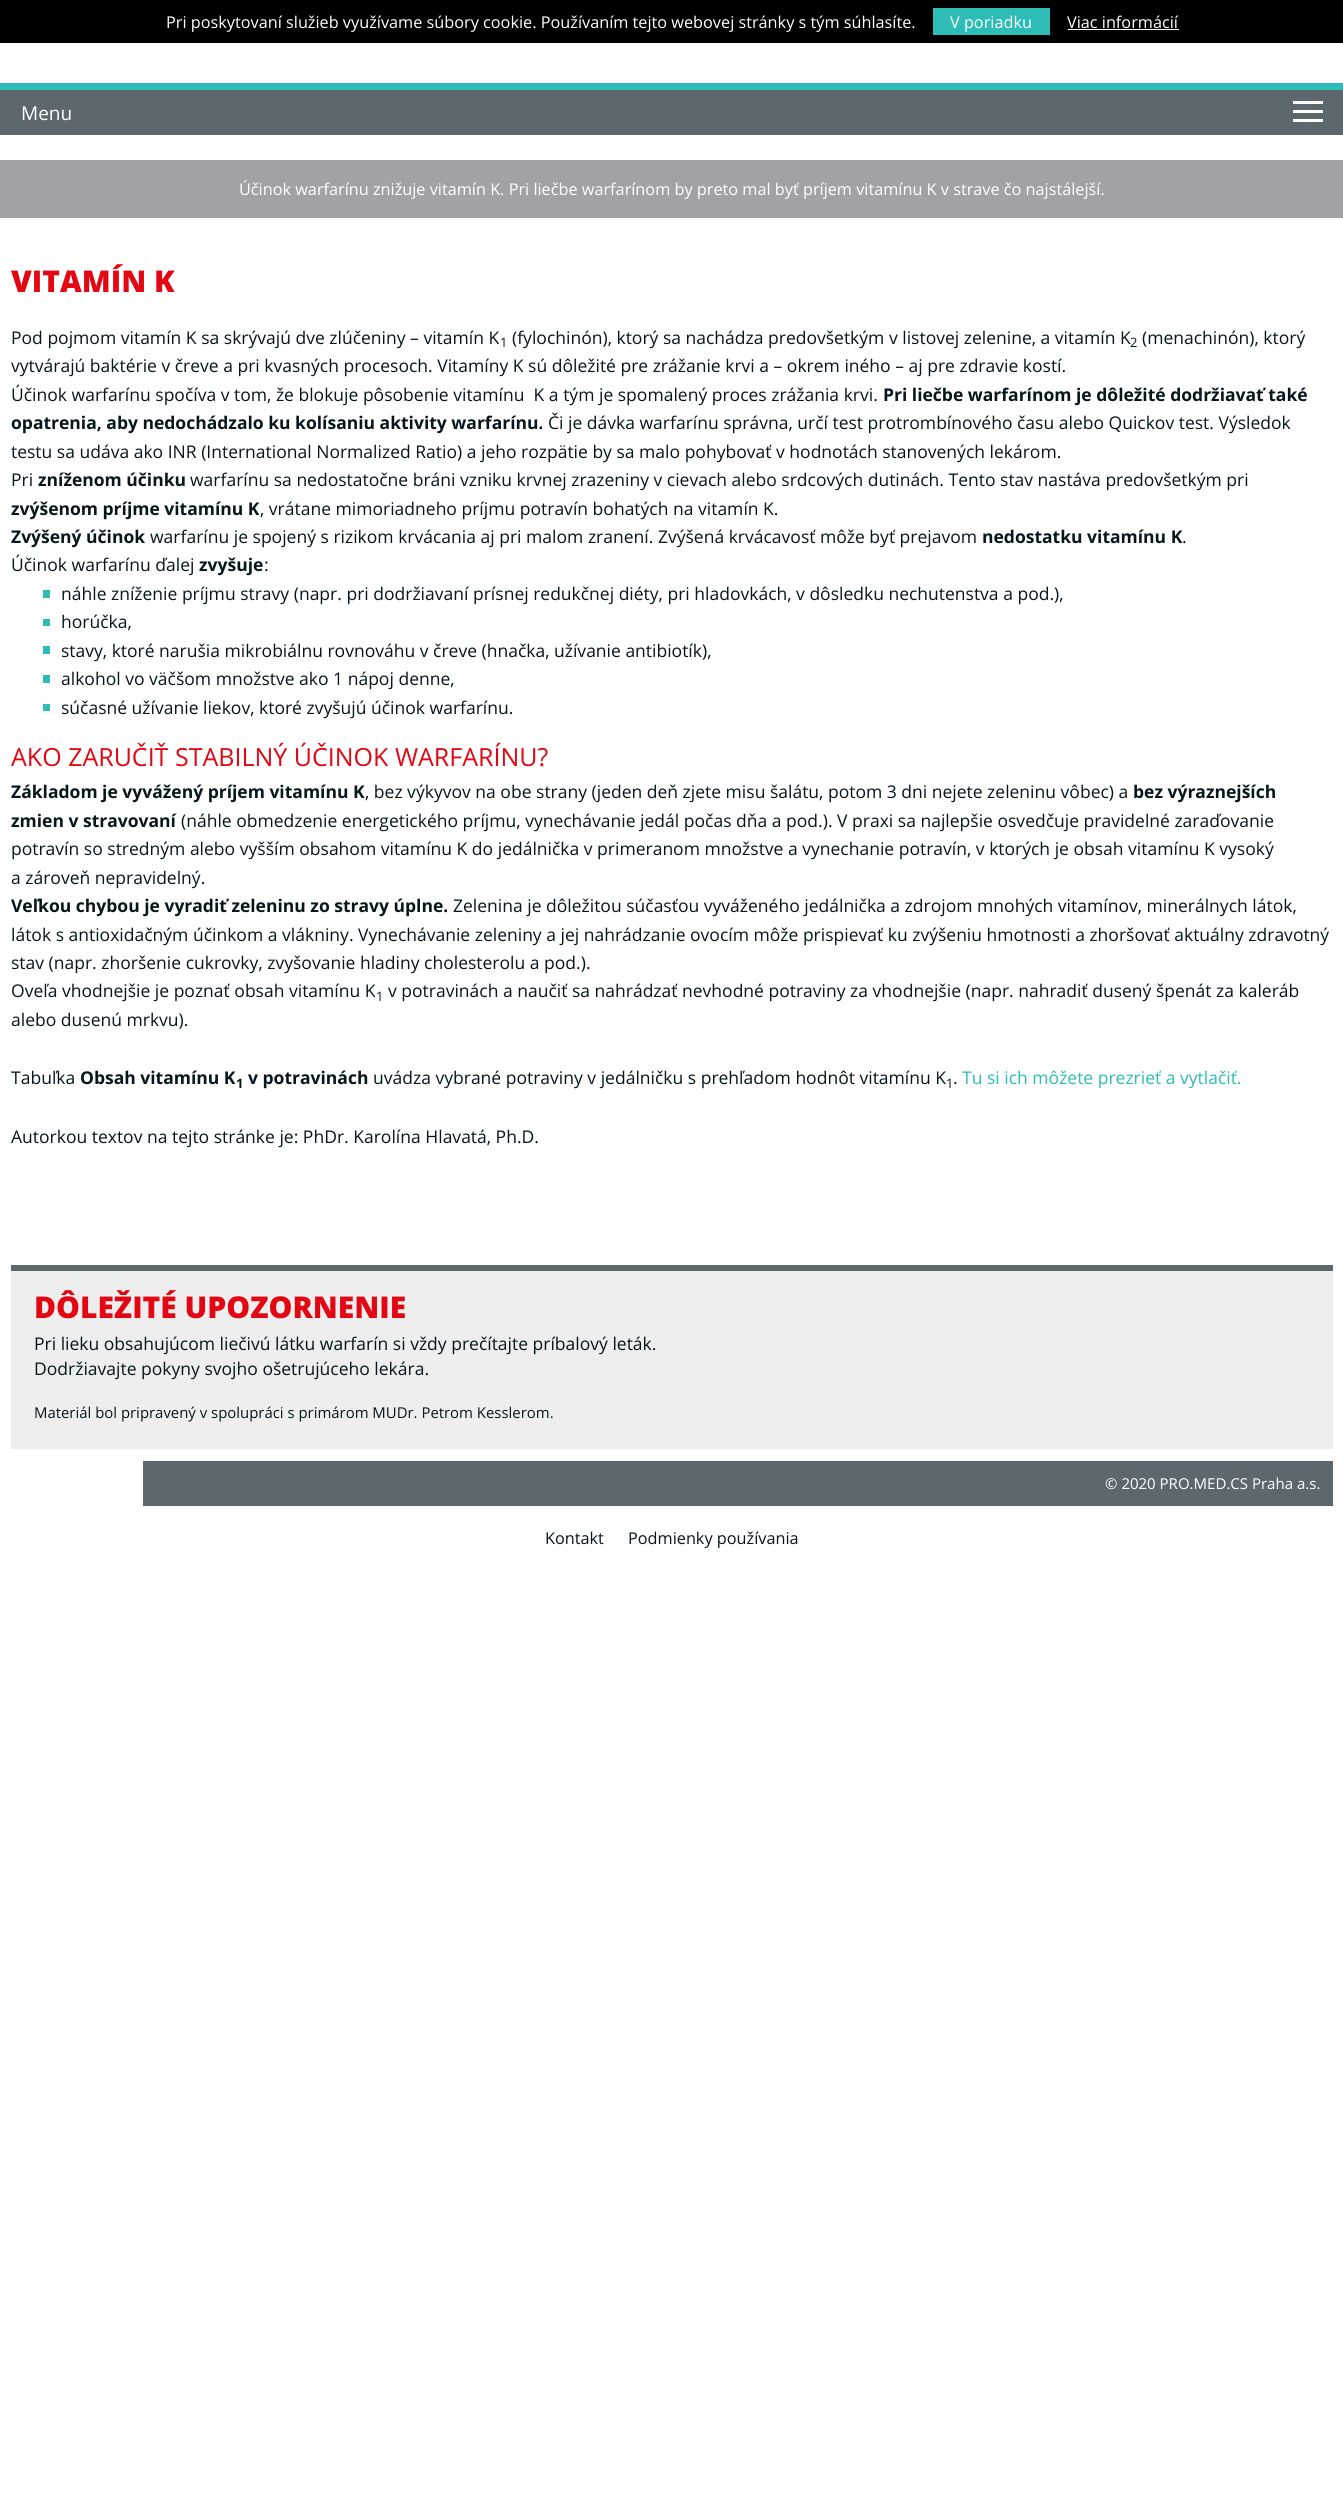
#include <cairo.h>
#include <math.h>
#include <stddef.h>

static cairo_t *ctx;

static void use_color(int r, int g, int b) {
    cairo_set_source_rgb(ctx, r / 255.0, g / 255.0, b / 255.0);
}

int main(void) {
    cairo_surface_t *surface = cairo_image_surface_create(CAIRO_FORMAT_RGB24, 1343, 2506);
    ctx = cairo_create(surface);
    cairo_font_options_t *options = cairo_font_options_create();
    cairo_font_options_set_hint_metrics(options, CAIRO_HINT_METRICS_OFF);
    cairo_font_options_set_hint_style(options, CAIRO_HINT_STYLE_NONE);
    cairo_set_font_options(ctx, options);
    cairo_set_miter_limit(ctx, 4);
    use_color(255, 255, 255);
    cairo_paint(ctx);
    use_color(0, 0, 0);
    cairo_rectangle(ctx, 0, 0, 1343, 43);
    cairo_fill(ctx);
    cairo_select_font_face(ctx, "Open Sans", CAIRO_FONT_SLANT_NORMAL, CAIRO_FONT_WEIGHT_NORMAL);
    cairo_set_font_size(ctx, 16.25);
    use_color(255, 255, 255);
    cairo_move_to(ctx, 166, 28);
    cairo_show_text(ctx, "Pri poskytovaní služieb využívame súbory cookie. Používaním tejto webovej stránky s tým súhlasíte.");
    use_color(45, 189, 182);
    cairo_rectangle(ctx, 933, 8, 117, 27);
    cairo_fill(ctx);
    use_color(255, 255, 255);
    cairo_move_to(ctx, 950, 28);
    cairo_show_text(ctx, "V poriadku");
    cairo_move_to(ctx, 1067, 28);
    cairo_show_text(ctx, "Viac informácií");
    cairo_rectangle(ctx, 1068, 29, 111, 1);
    cairo_fill(ctx);
    use_color(93, 104, 110);
    cairo_rectangle(ctx, 0, 90, 1343, 45);
    cairo_fill(ctx);
    use_color(45, 189, 182);
    cairo_rectangle(ctx, 0, 83, 1343, 7);
    cairo_fill(ctx);
    cairo_set_font_size(ctx, 19);
    use_color(255, 255, 255);
    cairo_move_to(ctx, 21, 120);
    cairo_show_text(ctx, "Menu");
    cairo_rectangle(ctx, 1293, 101, 30, 3);
    cairo_fill(ctx);
    cairo_rectangle(ctx, 1293, 110, 30, 3);
    cairo_fill(ctx);
    cairo_rectangle(ctx, 1293, 119, 30, 3);
    cairo_fill(ctx);
    use_color(160, 162, 165);
    cairo_rectangle(ctx, 0, 160, 1343, 58);
    cairo_fill(ctx);
    cairo_set_font_size(ctx, 16.25);
    use_color(255, 255, 255);
    cairo_move_to(ctx, 239, 195);
    cairo_show_text(ctx, "Účinok warfarínu znižuje vitamín K. Pri liečbe warfarínom by preto mal byť príjem vitamínu K v strave čo najstálejší.");
    cairo_select_font_face(ctx, "Open Sans ExtraBold", CAIRO_FONT_SLANT_NORMAL, CAIRO_FONT_WEIGHT_NORMAL);
    cairo_set_font_size(ctx, 30);
    use_color(227, 6, 19);
    cairo_move_to(ctx, 11, 292);
    cairo_show_text(ctx, "VITAMÍN K");
    cairo_select_font_face(ctx, "Open Sans", CAIRO_FONT_SLANT_NORMAL, CAIRO_FONT_WEIGHT_NORMAL);
    cairo_set_font_size(ctx, 17.5);
    use_color(5, 23, 29);
    cairo_move_to(ctx, 11, 344);
    cairo_show_text(ctx, "Pod pojmom vitamín K sa skrývajú dve zlúčeniny – vitamín K");
    cairo_set_font_size(ctx, 13);
    cairo_move_to(ctx, 500, 347);
    cairo_show_text(ctx, "1");
    cairo_set_font_size(ctx, 17.5);
    cairo_move_to(ctx, 512, 344);
    cairo_show_text(ctx, "(fylochinón), ktorý sa nachádza predovšetkým v listovej zelenine, a vitamín K");
    cairo_set_font_size(ctx, 13);
    cairo_move_to(ctx, 1130, 347);
    cairo_show_text(ctx, "2");
    cairo_set_font_size(ctx, 17.5);
    cairo_move_to(ctx, 1142, 344);
    cairo_show_text(ctx, "(menachinón), ktorý");
    cairo_move_to(ctx, 11, 372);
    cairo_show_text(ctx, "vytvárajú baktérie v čreve a pri kvasných procesoch. Vitamíny K sú dôležité pre zrážanie krvi a – okrem iného – aj pre zdravie kostí.");
    cairo_move_to(ctx, 11, 401);
    cairo_show_text(ctx, "Účinok warfarínu spočíva v tom, že blokuje pôsobenie vitamínu  K a tým je spomalený proces zrážania krvi.");
    cairo_select_font_face(ctx, "Open Sans", CAIRO_FONT_SLANT_NORMAL, CAIRO_FONT_WEIGHT_BOLD);
    cairo_move_to(ctx, 883, 401);
    cairo_show_text(ctx, "Pri liečbe warfarínom je dôležité dodržiavať také");
    cairo_move_to(ctx, 11, 429);
    cairo_show_text(ctx, "opatrenia, aby nedochádzalo ku kolísaniu aktivity warfarínu.");
    cairo_select_font_face(ctx, "Open Sans", CAIRO_FONT_SLANT_NORMAL, CAIRO_FONT_WEIGHT_NORMAL);
    cairo_move_to(ctx, 548, 429);
    cairo_show_text(ctx, "Či je dávka warfarínu správna, určí test protrombínového času alebo Quickov test. Výsledok");
    cairo_move_to(ctx, 11, 458);
    cairo_show_text(ctx, "testu sa udáva ako INR (International Normalized Ratio) a jeho rozpätie by sa malo pohybovať v hodnotách stanovených lekárom.");
    cairo_move_to(ctx, 11, 486);
    cairo_show_text(ctx, "Pri");
    cairo_select_font_face(ctx, "Open Sans", CAIRO_FONT_SLANT_NORMAL, CAIRO_FONT_WEIGHT_BOLD);
    cairo_move_to(ctx, 38, 486);
    cairo_show_text(ctx, "zníženom účinku");
    cairo_select_font_face(ctx, "Open Sans", CAIRO_FONT_SLANT_NORMAL, CAIRO_FONT_WEIGHT_NORMAL);
    cairo_move_to(ctx, 190, 486);
    cairo_show_text(ctx, "warfarínu sa nedostatočne bráni vzniku krvnej zrazeniny v cievach alebo srdcových dutinách. Tento stav nastáva predovšetkým pri");
    cairo_select_font_face(ctx, "Open Sans", CAIRO_FONT_SLANT_NORMAL, CAIRO_FONT_WEIGHT_BOLD);
    cairo_move_to(ctx, 11, 515);
    cairo_show_text(ctx, "zvýšenom príjme vitamínu K");
    cairo_select_font_face(ctx, "Open Sans", CAIRO_FONT_SLANT_NORMAL, CAIRO_FONT_WEIGHT_NORMAL);
    cairo_move_to(ctx, 260, 515);
    cairo_show_text(ctx, ", vrátane mimoriadneho príjmu potravín bohatých na vitamín K.");
    cairo_select_font_face(ctx, "Open Sans", CAIRO_FONT_SLANT_NORMAL, CAIRO_FONT_WEIGHT_BOLD);
    cairo_move_to(ctx, 11, 543);
    cairo_show_text(ctx, "Zvýšený účinok");
    cairo_select_font_face(ctx, "Open Sans", CAIRO_FONT_SLANT_NORMAL, CAIRO_FONT_WEIGHT_NORMAL);
    cairo_move_to(ctx, 150, 543);
    cairo_show_text(ctx, "warfarínu je spojený s rizikom krvácania aj pri malom zranení. Zvýšená krvácavosť môže byť prejavom");
    cairo_select_font_face(ctx, "Open Sans", CAIRO_FONT_SLANT_NORMAL, CAIRO_FONT_WEIGHT_BOLD);
    cairo_move_to(ctx, 982, 543);
    cairo_show_text(ctx, "nedostatku vitamínu K");
    cairo_select_font_face(ctx, "Open Sans", CAIRO_FONT_SLANT_NORMAL, CAIRO_FONT_WEIGHT_NORMAL);
    cairo_move_to(ctx, 1182, 543);
    cairo_show_text(ctx, ".");
    cairo_move_to(ctx, 11, 571);
    cairo_show_text(ctx, "Účinok warfarínu ďalej");
    cairo_select_font_face(ctx, "Open Sans", CAIRO_FONT_SLANT_NORMAL, CAIRO_FONT_WEIGHT_BOLD);
    cairo_move_to(ctx, 199, 571);
    cairo_show_text(ctx, "zvyšuje");
    cairo_select_font_face(ctx, "Open Sans", CAIRO_FONT_SLANT_NORMAL, CAIRO_FONT_WEIGHT_NORMAL);
    cairo_move_to(ctx, 264, 571);
    cairo_show_text(ctx, ":");
    use_color(45, 189, 182);
    cairo_rectangle(ctx, 43, 590, 7, 8);
    cairo_fill(ctx);
    use_color(5, 23, 29);
    cairo_move_to(ctx, 61, 600);
    cairo_show_text(ctx, "náhle zníženie príjmu stravy (napr. pri dodržiavaní prísnej redukčnej diéty, pri hladovkách, v dôsledku nechutenstva a pod.),");
    use_color(45, 189, 182);
    cairo_rectangle(ctx, 43, 619, 7, 7);
    cairo_fill(ctx);
    use_color(5, 23, 29);
    cairo_move_to(ctx, 61, 628);
    cairo_show_text(ctx, "horúčka,");
    use_color(45, 189, 182);
    cairo_rectangle(ctx, 43, 646, 7, 8);
    cairo_fill(ctx);
    use_color(5, 23, 29);
    cairo_move_to(ctx, 61, 657);
    cairo_show_text(ctx, "stavy, ktoré narušia mikrobiálnu rovnováhu v čreve (hnačka, užívanie antibiotík),");
    use_color(45, 189, 182);
    cairo_rectangle(ctx, 43, 675, 7, 8);
    cairo_fill(ctx);
    use_color(5, 23, 29);
    cairo_move_to(ctx, 61, 685);
    cairo_show_text(ctx, "alkohol vo väčšom množstve ako 1 nápoj denne,");
    use_color(45, 189, 182);
    cairo_rectangle(ctx, 43, 704, 7, 7);
    cairo_fill(ctx);
    use_color(5, 23, 29);
    cairo_move_to(ctx, 61, 714);
    cairo_show_text(ctx, "súčasné užívanie liekov, ktoré zvyšujú účinok warfarínu.");
    cairo_set_font_size(ctx, 25);
    use_color(227, 6, 19);
    cairo_move_to(ctx, 11, 766);
    cairo_show_text(ctx, "AKO ZARUČIŤ STABILNÝ ÚČINOK WARFARÍNU?");
    cairo_select_font_face(ctx, "Open Sans", CAIRO_FONT_SLANT_NORMAL, CAIRO_FONT_WEIGHT_BOLD);
    cairo_set_font_size(ctx, 17.5);
    use_color(5, 23, 29);
    cairo_move_to(ctx, 11, 798);
    cairo_show_text(ctx, "Základom je vyvážený príjem vitamínu K");
    cairo_select_font_face(ctx, "Open Sans", CAIRO_FONT_SLANT_NORMAL, CAIRO_FONT_WEIGHT_NORMAL);
    cairo_move_to(ctx, 365, 798);
    cairo_show_text(ctx, ", bez výkyvov na obe strany (jeden deň zjete misu šalátu, potom 3 dni nejete zeleninu vôbec) a");
    cairo_select_font_face(ctx, "Open Sans", CAIRO_FONT_SLANT_NORMAL, CAIRO_FONT_WEIGHT_BOLD);
    cairo_move_to(ctx, 1133, 798);
    cairo_show_text(ctx, "bez výraznejších");
    cairo_move_to(ctx, 11, 827);
    cairo_show_text(ctx, "zmien v stravovaní");
    cairo_select_font_face(ctx, "Open Sans", CAIRO_FONT_SLANT_NORMAL, CAIRO_FONT_WEIGHT_NORMAL);
    cairo_move_to(ctx, 181, 827);
    cairo_show_text(ctx, "(náhle obmedzenie energetického príjmu, vynechávanie jedál počas dňa a pod.). V praxi sa najlepšie osvedčuje pravidelné zaraďovanie");
    cairo_move_to(ctx, 11, 855);
    cairo_show_text(ctx, "potravín so stredným alebo vyšším obsahom vitamínu K do jedálnička v primeranom množstve a vynechanie potravín, v ktorých je obsah vitamínu K vysoký");
    cairo_move_to(ctx, 11, 884);
    cairo_show_text(ctx, "a zároveň nepravidelný.");
    cairo_select_font_face(ctx, "Open Sans", CAIRO_FONT_SLANT_NORMAL, CAIRO_FONT_WEIGHT_BOLD);
    cairo_move_to(ctx, 11, 912);
    cairo_show_text(ctx, "Veľkou chybou je vyradiť zeleninu zo stravy úplne.");
    cairo_select_font_face(ctx, "Open Sans", CAIRO_FONT_SLANT_NORMAL, CAIRO_FONT_WEIGHT_NORMAL);
    cairo_move_to(ctx, 453, 912);
    cairo_show_text(ctx, "Zelenina je dôležitou súčasťou vyváženého jedálnička a zdrojom mnohých vitamínov, minerálnych látok,");
    cairo_move_to(ctx, 11, 941);
    cairo_show_text(ctx, "látok s antioxidačným účinkom a vlákniny. Vynechávanie zeleniny a jej nahrádzanie ovocím môže prispievať ku zvýšeniu hmotnosti a zhoršovať aktuálny zdravotný");
    cairo_move_to(ctx, 11, 969);
    cairo_show_text(ctx, "stav (napr. zhoršenie cukrovky, zvyšovanie hladiny cholesterolu a pod.).");
    cairo_move_to(ctx, 11, 997);
    cairo_show_text(ctx, "Oveľa vhodnejšie je poznať obsah vitamínu K");
    cairo_set_font_size(ctx, 13);
    cairo_move_to(ctx, 376, 1001);
    cairo_show_text(ctx, "1");
    cairo_set_font_size(ctx, 17.5);
    cairo_move_to(ctx, 388, 997);
    cairo_show_text(ctx, "v potravinách a naučiť sa nahrádzať nevhodné potraviny za vhodnejšie (napr. nahradiť dusený špenát za kaleráb");
    cairo_move_to(ctx, 11, 1026);
    cairo_show_text(ctx, "alebo dusenú mrkvu).");
    cairo_move_to(ctx, 11, 1084);
    cairo_show_text(ctx, "Tabuľka");
    cairo_select_font_face(ctx, "Open Sans", CAIRO_FONT_SLANT_NORMAL, CAIRO_FONT_WEIGHT_BOLD);
    cairo_move_to(ctx, 80, 1084);
    cairo_show_text(ctx, "Obsah vitamínu K");
    cairo_set_font_size(ctx, 13);
    cairo_move_to(ctx, 236, 1088);
    cairo_show_text(ctx, "1");
    cairo_set_font_size(ctx, 17.5);
    cairo_move_to(ctx, 248, 1084);
    cairo_show_text(ctx, "v potravinách");
    cairo_select_font_face(ctx, "Open Sans", CAIRO_FONT_SLANT_NORMAL, CAIRO_FONT_WEIGHT_NORMAL);
    cairo_move_to(ctx, 373, 1084);
    cairo_show_text(ctx, "uvádza vybrané potraviny v jedálničku s prehľadom hodnôt vitamínu K");
    cairo_set_font_size(ctx, 13);
    cairo_move_to(ctx, 946, 1088);
    cairo_show_text(ctx, "1");
    cairo_set_font_size(ctx, 17.5);
    cairo_move_to(ctx, 953, 1084);
    cairo_show_text(ctx, ".");
    use_color(45, 189, 182);
    cairo_move_to(ctx, 962, 1084);
    cairo_show_text(ctx, "Tu si ich môžete prezrieť a vytlačiť.");
    use_color(5, 23, 29);
    cairo_move_to(ctx, 11, 1143);
    cairo_show_text(ctx, "Autorkou textov na tejto stránke je: PhDr. Karolína Hlavatá, Ph.D.");
    use_color(238, 238, 238);
    cairo_rectangle(ctx, 11, 1271, 1322, 178);
    cairo_fill(ctx);
    use_color(93, 104, 110);
    cairo_rectangle(ctx, 11, 1265, 1322, 6);
    cairo_fill(ctx);
    cairo_select_font_face(ctx, "Open Sans ExtraBold", CAIRO_FONT_SLANT_NORMAL, CAIRO_FONT_WEIGHT_NORMAL);
    cairo_set_font_size(ctx, 30);
    use_color(227, 6, 19);
    cairo_move_to(ctx, 34, 1318);
    cairo_show_text(ctx, "DÔLEŽITÉ UPOZORNENIE");
    cairo_select_font_face(ctx, "Open Sans", CAIRO_FONT_SLANT_NORMAL, CAIRO_FONT_WEIGHT_NORMAL);
    cairo_set_font_size(ctx, 17.5);
    use_color(5, 23, 29);
    cairo_move_to(ctx, 34, 1350);
    cairo_show_text(ctx, "Pri lieku obsahujúcom liečivú látku warfarín si vždy prečítajte príbalový leták.");
    cairo_move_to(ctx, 34, 1375);
    cairo_show_text(ctx, "Dodržiavajte pokyny svojho ošetrujúceho lekára.");
    cairo_set_font_size(ctx, 14.9);
    cairo_move_to(ctx, 34, 1418);
    cairo_show_text(ctx, "Materiál bol pripravený v spolupráci s primárom MUDr. Petrom Kesslerom.");
    use_color(93, 104, 110);
    cairo_rectangle(ctx, 143, 1461, 1190, 45);
    cairo_fill(ctx);
    cairo_set_font_size(ctx, 15);
    use_color(255, 255, 255);
    cairo_move_to(ctx, 1105, 1489);
    cairo_show_text(ctx, "© 2020 PRO.MED.CS Praha a.s.");
    cairo_set_font_size(ctx, 16.25);
    use_color(5, 23, 29);
    cairo_move_to(ctx, 545, 1544);
    cairo_show_text(ctx, "Kontakt");
    cairo_move_to(ctx, 628, 1544);
    cairo_show_text(ctx, "Podmienky používania");
    cairo_surface_write_to_png(surface, "result.png");
    cairo_font_options_destroy(options);
    cairo_destroy(ctx);
    cairo_surface_destroy(surface);
    return 0;
}
